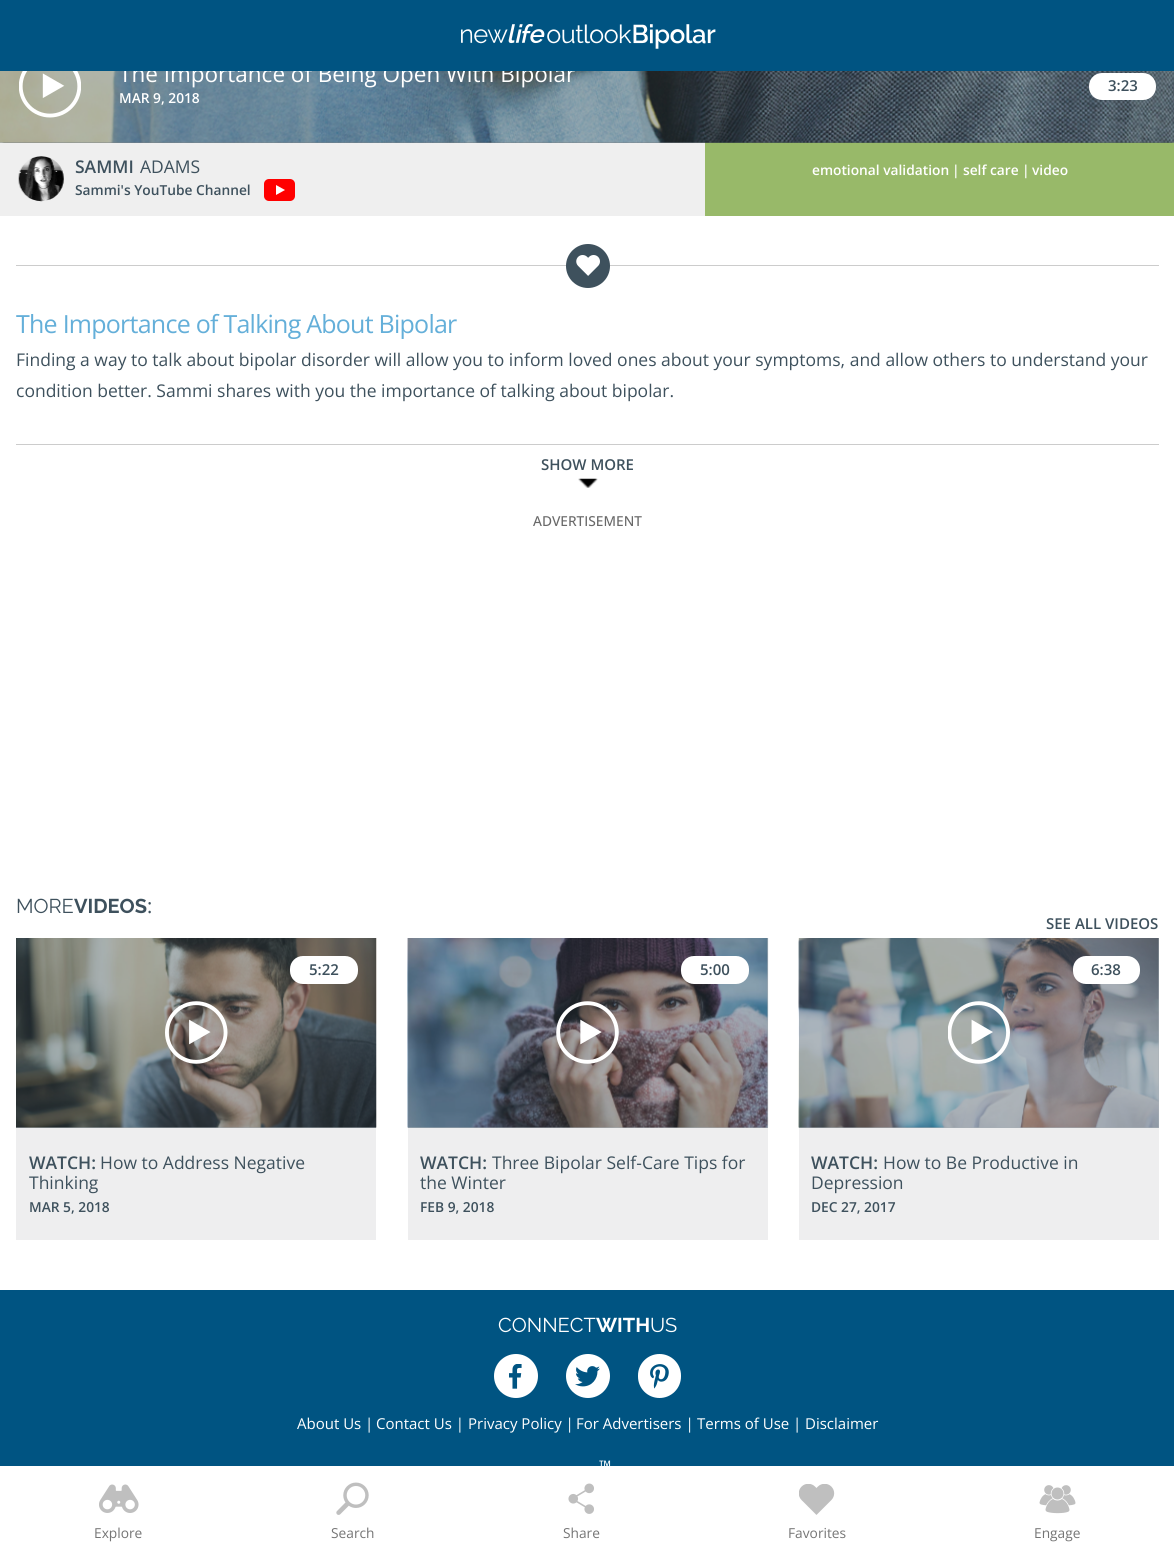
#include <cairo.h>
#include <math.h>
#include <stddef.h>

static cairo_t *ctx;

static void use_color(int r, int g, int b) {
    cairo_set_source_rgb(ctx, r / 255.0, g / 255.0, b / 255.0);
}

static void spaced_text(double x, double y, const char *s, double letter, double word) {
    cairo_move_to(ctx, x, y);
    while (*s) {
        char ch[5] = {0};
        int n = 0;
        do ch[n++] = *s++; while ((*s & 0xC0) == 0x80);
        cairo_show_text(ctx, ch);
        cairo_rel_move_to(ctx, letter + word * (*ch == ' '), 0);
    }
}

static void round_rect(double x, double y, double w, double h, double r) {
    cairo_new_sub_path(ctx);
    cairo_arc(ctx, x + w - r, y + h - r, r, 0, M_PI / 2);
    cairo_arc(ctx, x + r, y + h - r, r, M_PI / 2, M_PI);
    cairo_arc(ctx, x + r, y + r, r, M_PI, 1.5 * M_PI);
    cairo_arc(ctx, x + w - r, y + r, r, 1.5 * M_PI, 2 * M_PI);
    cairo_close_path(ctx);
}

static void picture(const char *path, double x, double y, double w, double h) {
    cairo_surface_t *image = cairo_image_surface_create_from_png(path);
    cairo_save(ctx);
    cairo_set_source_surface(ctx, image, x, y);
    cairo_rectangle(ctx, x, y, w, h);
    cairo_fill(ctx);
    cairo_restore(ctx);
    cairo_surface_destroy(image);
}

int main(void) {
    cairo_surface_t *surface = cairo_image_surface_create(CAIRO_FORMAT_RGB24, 1174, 1546);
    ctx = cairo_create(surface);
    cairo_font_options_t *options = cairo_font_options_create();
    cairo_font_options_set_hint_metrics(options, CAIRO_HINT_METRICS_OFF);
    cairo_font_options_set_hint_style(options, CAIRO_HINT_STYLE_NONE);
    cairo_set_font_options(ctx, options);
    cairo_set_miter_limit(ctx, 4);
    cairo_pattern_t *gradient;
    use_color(255, 255, 255);
    cairo_paint(ctx);
    use_color(239, 239, 239);
    cairo_rectangle(ctx, 0, 142, 705, 74);
    cairo_fill(ctx);
    use_color(152, 185, 105);
    cairo_rectangle(ctx, 705, 142, 469, 74);
    cairo_fill(ctx);
    picture("img2.png", 2, 142, 1171, 1);
    gradient = cairo_pattern_create_linear(588, 143, 588, -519);
    cairo_pattern_add_color_stop_rgba(gradient, 0, 0, 0, 0, 0.25);
    cairo_pattern_add_color_stop_rgba(gradient, 0.15, 0, 0, 0, 0);
    cairo_set_source(ctx, gradient);
    cairo_pattern_destroy(gradient);
    round_rect(0, -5, 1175, 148, 5);
    cairo_fill(ctx);
    picture("img4.png", 0, 71, 1174, 72);
    cairo_set_source_rgba(ctx, 0.243, 0.318, 0.365, 0.4);
    cairo_rectangle(ctx, 0, 71, 1174, 72);
    cairo_fill(ctx);
    cairo_select_font_face(ctx, "Open Sans", CAIRO_FONT_SLANT_NORMAL, CAIRO_FONT_WEIGHT_NORMAL);
    cairo_set_font_size(ctx, 22.5);
    use_color(255, 255, 255);
    cairo_move_to(ctx, 119, 82);
    cairo_show_text(ctx, "The Importance of Being Open With Bipolar");
    use_color(0, 84, 130);
    cairo_rectangle(ctx, 0, 0, 1174, 71);
    cairo_fill(ctx);
    picture("img1.png", 461, 24, 255, 25);
    picture("img3.png", 19, 71, 62, 47);
    cairo_select_font_face(ctx, "Open Sans SemiBold", CAIRO_FONT_SLANT_NORMAL, CAIRO_FONT_WEIGHT_NORMAL);
    cairo_set_font_size(ctx, 13.75);
    use_color(255, 255, 255);
    cairo_move_to(ctx, 119, 103);
    cairo_show_text(ctx, "MAR 9, 2018");
    round_rect(1089, 73, 67, 27, 13);
    cairo_fill(ctx);
    cairo_set_font_size(ctx, 15);
    use_color(62, 81, 93);
    cairo_move_to(ctx, 1108, 91);
    cairo_show_text(ctx, "3:23");
    picture("img5.png", 18, 156, 46, 46);
    cairo_set_font_size(ctx, 17.5);
    cairo_move_to(ctx, 75, 173);
    cairo_show_text(ctx, "SAMMI");
    cairo_select_font_face(ctx, "Open Sans", CAIRO_FONT_SLANT_NORMAL, CAIRO_FONT_WEIGHT_NORMAL);
    cairo_move_to(ctx, 140, 173);
    cairo_show_text(ctx, "ADAMS");
    cairo_select_font_face(ctx, "Open Sans SemiBold", CAIRO_FONT_SLANT_NORMAL, CAIRO_FONT_WEIGHT_NORMAL);
    cairo_set_font_size(ctx, 13.75);
    cairo_move_to(ctx, 75, 195);
    cairo_show_text(ctx, "Sammi's YouTube Channel");
    use_color(255, 0, 0);
    round_rect(264, 179, 31, 22, 5);
    cairo_fill(ctx);
    use_color(255, 255, 255);
    cairo_new_path(ctx);
    cairo_move_to(ctx, 276, 195);
    cairo_line_to(ctx, 276, 185);
    cairo_line_to(ctx, 285, 190);
    cairo_close_path(ctx);
    cairo_fill(ctx);
    cairo_move_to(ctx, 812, 175);
    cairo_show_text(ctx, "emotional validation");
    cairo_move_to(ctx, 952, 175);
    cairo_show_text(ctx, "|");
    cairo_move_to(ctx, 963, 175);
    cairo_show_text(ctx, "self care");
    cairo_move_to(ctx, 1022, 175);
    cairo_show_text(ctx, "|");
    cairo_move_to(ctx, 1032, 175);
    cairo_show_text(ctx, "video");
    use_color(204, 204, 204);
    cairo_rectangle(ctx, 16, 265, 1143, 1);
    cairo_fill(ctx);
    use_color(62, 81, 93);
    cairo_arc(ctx, 588, 266, 22, 0, 2 * M_PI);
    cairo_fill(ctx);
    picture("img6.png", 576, 255, 24, 21);
    cairo_select_font_face(ctx, "Open Sans", CAIRO_FONT_SLANT_NORMAL, CAIRO_FONT_WEIGHT_NORMAL);
    cairo_set_font_size(ctx, 25);
    use_color(100, 175, 217);
    spaced_text(16, 333, "The Importance of Talking About Bipolar", -0.75, 0);
    cairo_set_font_size(ctx, 17.5);
    use_color(62, 81, 93);
    cairo_move_to(ctx, 16, 366);
    cairo_show_text(ctx, "Finding a way to talk about bipolar disorder will allow you to inform loved ones about your symptoms, and allow others to understand your");
    cairo_move_to(ctx, 16, 397);
    cairo_show_text(ctx, "condition better. Sammi shares with you the importance of talking about bipolar.");
    use_color(204, 204, 204);
    cairo_rectangle(ctx, 16, 444, 1143, 1);
    cairo_fill(ctx);
    cairo_select_font_face(ctx, "Open Sans SemiBold", CAIRO_FONT_SLANT_NORMAL, CAIRO_FONT_WEIGHT_NORMAL);
    cairo_set_font_size(ctx, 15);
    use_color(62, 81, 93);
    cairo_move_to(ctx, 541, 470);
    cairo_show_text(ctx, "SHOW MORE");
    picture("img7.png", 578, 478, 20, 10);
    cairo_select_font_face(ctx, "Open Sans Medium", CAIRO_FONT_SLANT_NORMAL, CAIRO_FONT_WEIGHT_NORMAL);
    cairo_set_font_size(ctx, 13.75);
    use_color(105, 105, 105);
    cairo_move_to(ctx, 533, 526);
    cairo_show_text(ctx, "ADVERTISEMENT");
    cairo_select_font_face(ctx, "Raleway", CAIRO_FONT_SLANT_NORMAL, CAIRO_FONT_WEIGHT_NORMAL);
    cairo_set_font_size(ctx, 20);
    use_color(62, 81, 93);
    cairo_move_to(ctx, 16, 913);
    cairo_show_text(ctx, "MORE");
    cairo_select_font_face(ctx, "Raleway", CAIRO_FONT_SLANT_NORMAL, CAIRO_FONT_WEIGHT_BOLD);
    cairo_move_to(ctx, 74, 913);
    cairo_show_text(ctx, "VIDEOS");
    cairo_select_font_face(ctx, "Open Sans", CAIRO_FONT_SLANT_NORMAL, CAIRO_FONT_WEIGHT_NORMAL);
    cairo_move_to(ctx, 147, 913);
    cairo_show_text(ctx, ":");
    cairo_select_font_face(ctx, "Open Sans SemiBold", CAIRO_FONT_SLANT_NORMAL, CAIRO_FONT_WEIGHT_NORMAL);
    cairo_set_font_size(ctx, 15);
    cairo_move_to(ctx, 1046, 929);
    cairo_show_text(ctx, "SEE ALL VIDEOS");
    use_color(238, 238, 239);
    cairo_rectangle(ctx, 16, 1128, 360, 112);
    cairo_fill(ctx);
    use_color(168, 175, 181);
    cairo_rectangle(ctx, 16, 1127, 360, 1);
    cairo_fill(ctx);
    picture("img8.png", 16, 938, 361, 190);
    use_color(255, 255, 255);
    round_rect(290, 956, 68, 28, 13);
    cairo_fill(ctx);
    use_color(62, 81, 93);
    cairo_move_to(ctx, 309, 975);
    cairo_show_text(ctx, "5:22");
    picture("img9.png", 165, 1001, 63, 63);
    cairo_set_font_size(ctx, 17.5);
    cairo_move_to(ctx, 29, 1169);
    cairo_show_text(ctx, "WATCH:");
    cairo_select_font_face(ctx, "Open Sans", CAIRO_FONT_SLANT_NORMAL, CAIRO_FONT_WEIGHT_NORMAL);
    cairo_move_to(ctx, 100, 1169);
    cairo_show_text(ctx, "How to Address Negative");
    cairo_move_to(ctx, 29, 1189);
    cairo_show_text(ctx, "Thinking");
    cairo_select_font_face(ctx, "Open Sans SemiBold", CAIRO_FONT_SLANT_NORMAL, CAIRO_FONT_WEIGHT_NORMAL);
    cairo_set_font_size(ctx, 13.75);
    cairo_move_to(ctx, 29, 1212);
    cairo_show_text(ctx, "MAR 5, 2018");
    use_color(238, 238, 239);
    cairo_rectangle(ctx, 408, 1128, 360, 112);
    cairo_fill(ctx);
    use_color(168, 175, 181);
    cairo_rectangle(ctx, 408, 938, 360, 190);
    cairo_fill(ctx);
    picture("img10.png", 407, 938, 362, 190);
    use_color(255, 255, 255);
    round_rect(681, 956, 68, 28, 13);
    cairo_fill(ctx);
    cairo_set_font_size(ctx, 15);
    use_color(62, 81, 93);
    cairo_move_to(ctx, 700, 975);
    cairo_show_text(ctx, "5:00");
    picture("img11.png", 556, 1001, 63, 63);
    cairo_set_font_size(ctx, 17.5);
    cairo_move_to(ctx, 420, 1169);
    cairo_show_text(ctx, "WATCH:");
    cairo_select_font_face(ctx, "Open Sans", CAIRO_FONT_SLANT_NORMAL, CAIRO_FONT_WEIGHT_NORMAL);
    cairo_move_to(ctx, 492, 1169);
    cairo_show_text(ctx, "Three Bipolar Self-Care Tips for");
    cairo_move_to(ctx, 420, 1189);
    cairo_show_text(ctx, "the Winter");
    cairo_select_font_face(ctx, "Open Sans SemiBold", CAIRO_FONT_SLANT_NORMAL, CAIRO_FONT_WEIGHT_NORMAL);
    cairo_set_font_size(ctx, 13.75);
    cairo_move_to(ctx, 420, 1212);
    cairo_show_text(ctx, "FEB 9, 2018");
    use_color(238, 238, 239);
    cairo_rectangle(ctx, 799, 1128, 360, 112);
    cairo_fill(ctx);
    use_color(168, 175, 181);
    cairo_rectangle(ctx, 799, 938, 360, 190);
    cairo_fill(ctx);
    picture("img12.png", 798, 938, 361, 190);
    use_color(255, 255, 255);
    round_rect(1073, 956, 67, 28, 13);
    cairo_fill(ctx);
    cairo_set_font_size(ctx, 15);
    use_color(62, 81, 93);
    cairo_move_to(ctx, 1091, 975);
    cairo_show_text(ctx, "6:38");
    picture("img13.png", 948, 1001, 62, 63);
    cairo_set_font_size(ctx, 17.5);
    cairo_move_to(ctx, 811, 1169);
    cairo_show_text(ctx, "WATCH:");
    cairo_select_font_face(ctx, "Open Sans", CAIRO_FONT_SLANT_NORMAL, CAIRO_FONT_WEIGHT_NORMAL);
    cairo_move_to(ctx, 883, 1169);
    cairo_show_text(ctx, "How to Be Productive in");
    cairo_move_to(ctx, 811, 1189);
    cairo_show_text(ctx, "Depression");
    cairo_select_font_face(ctx, "Open Sans SemiBold", CAIRO_FONT_SLANT_NORMAL, CAIRO_FONT_WEIGHT_NORMAL);
    cairo_set_font_size(ctx, 13.75);
    cairo_move_to(ctx, 811, 1212);
    cairo_show_text(ctx, "DEC 27, 2017");
    use_color(0, 84, 130);
    cairo_rectangle(ctx, 0, 1290, 1174, 176);
    cairo_fill(ctx);
    cairo_select_font_face(ctx, "Raleway", CAIRO_FONT_SLANT_NORMAL, CAIRO_FONT_WEIGHT_NORMAL);
    cairo_set_font_size(ctx, 20);
    use_color(255, 255, 255);
    cairo_move_to(ctx, 498, 1332);
    cairo_show_text(ctx, "CONNECT");
    cairo_select_font_face(ctx, "Raleway", CAIRO_FONT_SLANT_NORMAL, CAIRO_FONT_WEIGHT_BOLD);
    cairo_move_to(ctx, 596, 1332);
    cairo_show_text(ctx, "WITH");
    cairo_select_font_face(ctx, "Raleway", CAIRO_FONT_SLANT_NORMAL, CAIRO_FONT_WEIGHT_NORMAL);
    cairo_move_to(ctx, 650, 1332);
    cairo_show_text(ctx, "US");
    cairo_new_path(ctx);
    cairo_arc(ctx, 516, 1376, 22, 0, 2 * M_PI);
    cairo_fill(ctx);
    picture("img14.png", 509, 1364, 13, 25);
    cairo_arc(ctx, 588, 1376, 22, 0, 2 * M_PI);
    cairo_fill(ctx);
    picture("img15.png", 575, 1366, 25, 21);
    round_rect(638, 1354, 43, 44, 21.5);
    cairo_fill(ctx);
    picture("img16.png", 650, 1364, 19, 25);
    cairo_select_font_face(ctx, "Open Sans", CAIRO_FONT_SLANT_NORMAL, CAIRO_FONT_WEIGHT_NORMAL);
    cairo_set_font_size(ctx, 15);
    cairo_move_to(ctx, 297, 1429);
    cairo_show_text(ctx, "About Us |");
    cairo_move_to(ctx, 376, 1429);
    cairo_show_text(ctx, "Contact Us |");
    cairo_move_to(ctx, 468, 1429);
    cairo_show_text(ctx, "Privacy Policy |");
    cairo_move_to(ctx, 576, 1429);
    cairo_show_text(ctx, "For Advertisers |");
    cairo_move_to(ctx, 697, 1429);
    cairo_show_text(ctx, "Terms of Use |");
    cairo_move_to(ctx, 805, 1429);
    cairo_show_text(ctx, "Disclaimer");
    cairo_set_font_size(ctx, 16);
    cairo_move_to(ctx, 599, 1472);
    cairo_show_text(ctx, "™");
    picture("img17.png", 99, 1484, 40, 29);
    cairo_set_font_size(ctx, 13.75);
    use_color(117, 117, 117);
    cairo_move_to(ctx, 94, 1538);
    cairo_show_text(ctx, "Explore");
    picture("img18.png", 336, 1482, 33, 33);
    cairo_move_to(ctx, 331, 1538);
    cairo_show_text(ctx, "Search");
    picture("img19.png", 568, 1483, 26, 31);
    cairo_move_to(ctx, 563, 1538);
    cairo_show_text(ctx, "Share");
    picture("img20.png", 799, 1484, 36, 31);
    cairo_move_to(ctx, 788, 1538);
    cairo_show_text(ctx, "Favorites");
    picture("img21.png", 1039, 1485, 37, 29);
    cairo_move_to(ctx, 1034, 1538);
    cairo_show_text(ctx, "Engage");
    cairo_surface_write_to_png(surface, "result.png");
    cairo_font_options_destroy(options);
    cairo_destroy(ctx);
    cairo_surface_destroy(surface);
    return 0;
}
